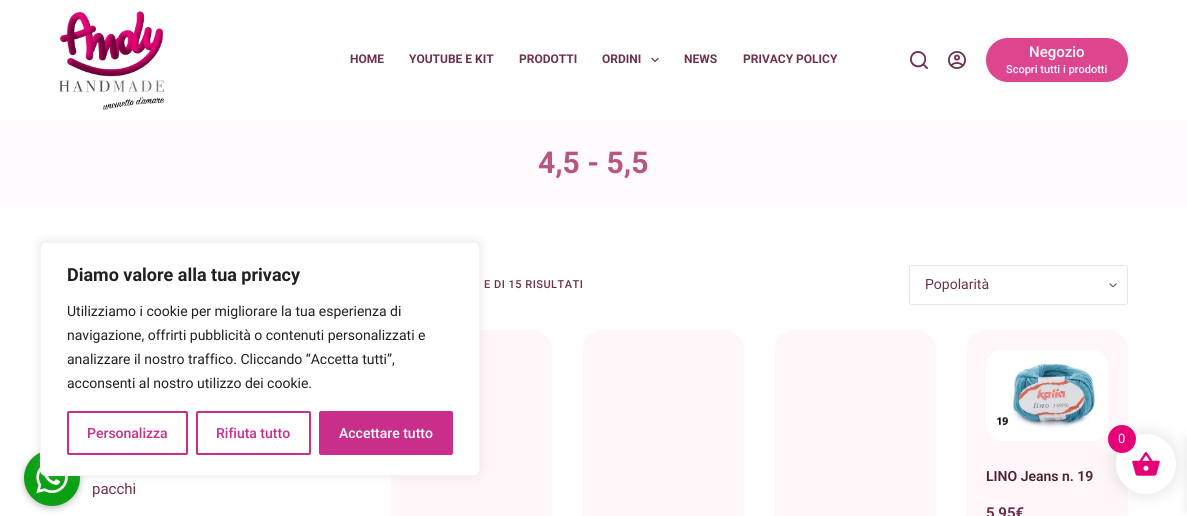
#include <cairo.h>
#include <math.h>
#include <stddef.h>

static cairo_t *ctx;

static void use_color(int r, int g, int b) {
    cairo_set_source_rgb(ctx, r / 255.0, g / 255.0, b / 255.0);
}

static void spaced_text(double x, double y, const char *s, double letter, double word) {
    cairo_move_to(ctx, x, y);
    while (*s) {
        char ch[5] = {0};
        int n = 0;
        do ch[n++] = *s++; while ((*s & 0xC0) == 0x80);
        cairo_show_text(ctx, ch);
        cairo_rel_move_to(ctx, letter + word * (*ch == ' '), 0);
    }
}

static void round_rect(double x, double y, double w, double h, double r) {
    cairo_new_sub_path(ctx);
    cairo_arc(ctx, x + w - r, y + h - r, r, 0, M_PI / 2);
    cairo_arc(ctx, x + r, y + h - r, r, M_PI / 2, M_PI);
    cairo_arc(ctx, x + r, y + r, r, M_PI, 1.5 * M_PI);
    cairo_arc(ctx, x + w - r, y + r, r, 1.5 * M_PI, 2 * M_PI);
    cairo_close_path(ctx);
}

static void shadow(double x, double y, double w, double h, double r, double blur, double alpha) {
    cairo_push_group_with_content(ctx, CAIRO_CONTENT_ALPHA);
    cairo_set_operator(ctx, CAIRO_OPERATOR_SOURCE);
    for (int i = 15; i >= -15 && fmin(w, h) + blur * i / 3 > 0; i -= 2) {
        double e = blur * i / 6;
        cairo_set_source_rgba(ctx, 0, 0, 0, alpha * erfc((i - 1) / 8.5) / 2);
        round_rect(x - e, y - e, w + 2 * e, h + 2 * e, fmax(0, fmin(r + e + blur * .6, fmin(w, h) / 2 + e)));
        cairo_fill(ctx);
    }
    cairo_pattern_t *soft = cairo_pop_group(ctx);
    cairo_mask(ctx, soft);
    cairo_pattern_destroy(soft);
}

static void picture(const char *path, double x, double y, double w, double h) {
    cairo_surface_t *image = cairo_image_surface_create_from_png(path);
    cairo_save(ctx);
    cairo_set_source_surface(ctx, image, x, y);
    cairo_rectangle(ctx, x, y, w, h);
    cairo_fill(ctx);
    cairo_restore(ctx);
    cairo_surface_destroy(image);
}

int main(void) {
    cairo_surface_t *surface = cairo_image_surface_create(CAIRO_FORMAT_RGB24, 1187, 516);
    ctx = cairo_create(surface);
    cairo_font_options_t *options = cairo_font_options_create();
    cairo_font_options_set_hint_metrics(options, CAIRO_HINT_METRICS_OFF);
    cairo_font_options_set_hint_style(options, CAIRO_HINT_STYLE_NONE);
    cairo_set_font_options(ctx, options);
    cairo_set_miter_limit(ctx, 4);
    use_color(255, 255, 255);
    cairo_paint(ctx);
    picture("img1.png", 59, 11, 106, 99);
    cairo_select_font_face(ctx, "Roboto", CAIRO_FONT_SLANT_NORMAL, CAIRO_FONT_WEIGHT_BOLD);
    cairo_set_font_size(ctx, 12);
    use_color(109, 49, 78);
    cairo_move_to(ctx, 350, 63);
    cairo_show_text(ctx, "HOME");
    cairo_move_to(ctx, 409, 63);
    cairo_show_text(ctx, "YOUTUBE E KIT");
    cairo_move_to(ctx, 519, 63);
    cairo_show_text(ctx, "PRODOTTI");
    cairo_move_to(ctx, 602, 63);
    cairo_show_text(ctx, "ORDINI");
    picture("img2.png", 651, 57, 8, 6);
    cairo_move_to(ctx, 684, 63);
    cairo_show_text(ctx, "NEWS");
    cairo_move_to(ctx, 743, 63);
    cairo_show_text(ctx, "PRIVACY POLICY");
    picture("img3.png", 910, 51, 18, 18);
    picture("img4.png", 948, 51, 18, 18);
    use_color(222, 69, 143);
    round_rect(986, 38, 142, 44, 22);
    cairo_fill(ctx);
    cairo_select_font_face(ctx, "Roboto Medium", CAIRO_FONT_SLANT_NORMAL, CAIRO_FONT_WEIGHT_NORMAL);
    cairo_set_font_size(ctx, 15);
    use_color(255, 255, 255);
    cairo_move_to(ctx, 1029, 57);
    cairo_show_text(ctx, "Negozio");
    cairo_set_font_size(ctx, 11);
    cairo_move_to(ctx, 1006, 73);
    cairo_show_text(ctx, "Scopri tutti i prodotti");
    use_color(255, 250, 253);
    cairo_rectangle(ctx, 0, 120, 1187, 85);
    cairo_fill(ctx);
    cairo_select_font_face(ctx, "Roboto", CAIRO_FONT_SLANT_NORMAL, CAIRO_FONT_WEIGHT_BOLD);
    cairo_set_font_size(ctx, 30);
    use_color(183, 86, 133);
    cairo_move_to(ctx, 538, 173);
    cairo_show_text(ctx, "4,5 - 5,5");
    cairo_select_font_face(ctx, "Roboto", CAIRO_FONT_SLANT_NORMAL, CAIRO_FONT_WEIGHT_NORMAL);
    cairo_set_font_size(ctx, 15);
    use_color(109, 49, 78);
    cairo_move_to(ctx, 92, 494);
    cairo_show_text(ctx, "pacchi");
    cairo_select_font_face(ctx, "Roboto Medium", CAIRO_FONT_SLANT_NORMAL, CAIRO_FONT_WEIGHT_NORMAL);
    cairo_set_font_size(ctx, 11);
    spaced_text(484, 288, "E DI 15 RISULTATI", 0.5, 0);
    picture("img5.png", 1109, 283, 8, 4);
    round_rect(909.5, 265.5, 218, 39, 2.5);
    use_color(225, 232, 237);
    cairo_set_line_width(ctx, 1);
    cairo_stroke(ctx);
    cairo_select_font_face(ctx, "Roboto", CAIRO_FONT_SLANT_NORMAL, CAIRO_FONT_WEIGHT_NORMAL);
    cairo_set_font_size(ctx, 14);
    use_color(109, 49, 78);
    cairo_move_to(ctx, 925, 289);
    cairo_show_text(ctx, "Popolarità");
    use_color(255, 246, 250);
    round_rect(391, 330, 161, 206, 20);
    cairo_fill(ctx);
    round_rect(582, 330, 162, 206, 20);
    cairo_fill(ctx);
    round_rect(774, 330, 162, 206, 20);
    cairo_fill(ctx);
    round_rect(966, 330, 162, 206, 20);
    cairo_fill(ctx);
    picture("img6.png", 986, 350, 122, 91);
    cairo_select_font_face(ctx, "Roboto SemiBold", CAIRO_FONT_SLANT_NORMAL, CAIRO_FONT_WEIGHT_NORMAL);
    use_color(75, 34, 53);
    cairo_move_to(ctx, 986, 481);
    cairo_show_text(ctx, "LINO Jeans n. 19");
    cairo_select_font_face(ctx, "Roboto", CAIRO_FONT_SLANT_NORMAL, CAIRO_FONT_WEIGHT_BOLD);
    cairo_set_font_size(ctx, 15);
    use_color(109, 49, 78);
    cairo_move_to(ctx, 986, 518);
    cairo_show_text(ctx, "5,95€");
    use_color(0, 0, 0);
    shadow(23, 451, 58, 58, 29, 3, 0.2);
    use_color(11, 160, 19);
    cairo_arc(ctx, 52, 478, 28, 0, 2 * M_PI);
    cairo_fill(ctx);
    picture("img8.png", 36, 467, 32, 27);
    use_color(172, 171, 171);
    shadow(40, 241, 440, 234, 6, 5, 0.3);
    use_color(255, 255, 255);
    round_rect(40.5, 242.5, 439, 233, 5.5);
    cairo_fill_preserve(ctx);
    use_color(244, 244, 244);
    cairo_stroke(ctx);
    cairo_set_font_size(ctx, 18);
    use_color(33, 33, 33);
    cairo_move_to(ctx, 67, 281);
    cairo_show_text(ctx, "Diamo valore alla tua privacy");
    cairo_select_font_face(ctx, "Roboto", CAIRO_FONT_SLANT_NORMAL, CAIRO_FONT_WEIGHT_NORMAL);
    cairo_set_font_size(ctx, 14);
    cairo_move_to(ctx, 67, 316);
    cairo_show_text(ctx, "Utilizziamo i cookie per migliorare la tua esperienza di");
    cairo_move_to(ctx, 67, 340);
    cairo_show_text(ctx, "navigazione, offrirti pubblicità o contenuti personalizzati e");
    cairo_move_to(ctx, 67, 364);
    cairo_show_text(ctx, "analizzare il nostro traffico. Cliccando “Accetta tutti”,");
    cairo_move_to(ctx, 67, 388);
    cairo_show_text(ctx, "acconsenti al nostro utilizzo dei cookie.");
    round_rect(68, 412, 119, 42, 1);
    use_color(201, 46, 139);
    cairo_set_line_width(ctx, 2);
    cairo_stroke(ctx);
    cairo_select_font_face(ctx, "Roboto Medium", CAIRO_FONT_SLANT_NORMAL, CAIRO_FONT_WEIGHT_NORMAL);
    cairo_move_to(ctx, 87, 438);
    cairo_show_text(ctx, "Personalizza");
    round_rect(197, 412, 113, 42, 1);
    cairo_stroke(ctx);
    cairo_move_to(ctx, 216, 438);
    cairo_show_text(ctx, "Rifiuta tutto");
    round_rect(320, 412, 132, 42, 1);
    cairo_fill_preserve(ctx);
    cairo_stroke(ctx);
    use_color(255, 255, 255);
    cairo_move_to(ctx, 339, 438);
    cairo_show_text(ctx, "Accettare tutto");
    use_color(0, 0, 0);
    shadow(1114, 432, 64, 64, 32, 7.5, 0.1);
    shadow(1187, 437, 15, 74, 0, 5, 0.1);
    use_color(255, 255, 255);
    cairo_arc(ctx, 1146, 464, 30, 0, 2 * M_PI);
    cairo_fill(ctx);
    picture("img7.png", 1132, 452, 28, 24);
    use_color(229, 2, 119);
    cairo_arc(ctx, 1122, 439, 14, 0, 2 * M_PI);
    cairo_fill(ctx);
    cairo_select_font_face(ctx, "Roboto", CAIRO_FONT_SLANT_NORMAL, CAIRO_FONT_WEIGHT_NORMAL);
    cairo_set_font_size(ctx, 13);
    use_color(255, 255, 255);
    cairo_move_to(ctx, 1118, 443);
    cairo_show_text(ctx, "0");
    cairo_surface_write_to_png(surface, "result.png");
    cairo_font_options_destroy(options);
    cairo_destroy(ctx);
    cairo_surface_destroy(surface);
    return 0;
}
